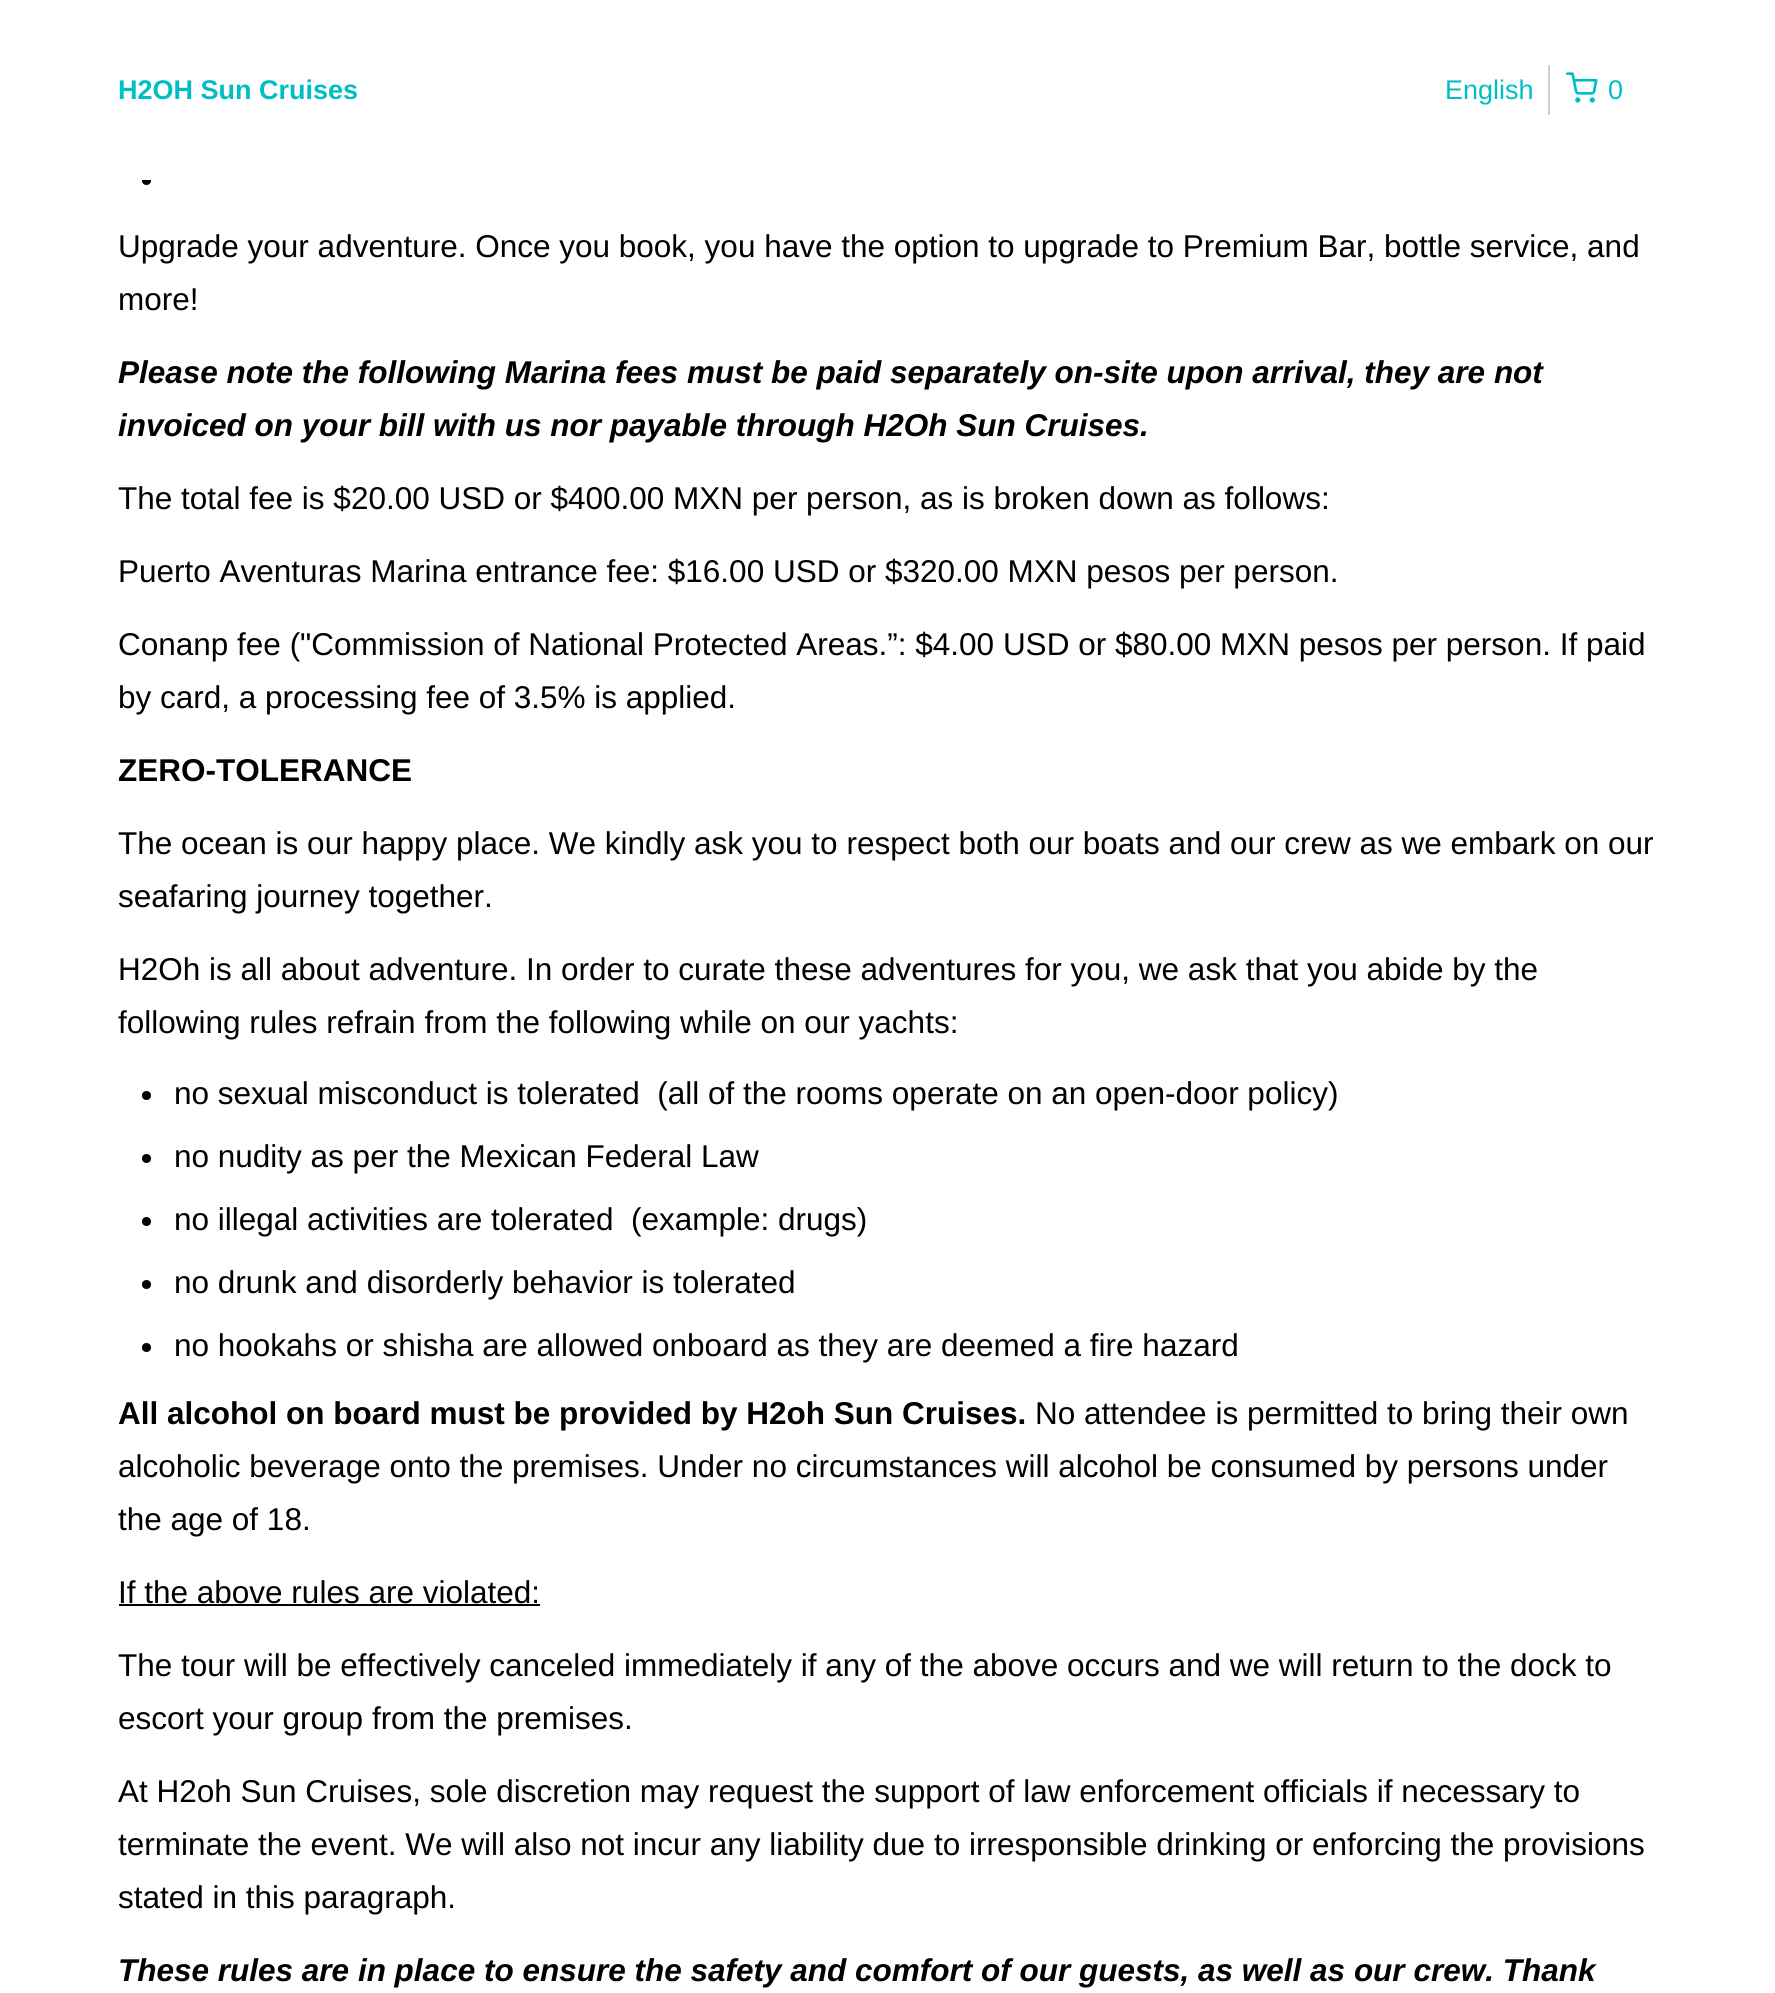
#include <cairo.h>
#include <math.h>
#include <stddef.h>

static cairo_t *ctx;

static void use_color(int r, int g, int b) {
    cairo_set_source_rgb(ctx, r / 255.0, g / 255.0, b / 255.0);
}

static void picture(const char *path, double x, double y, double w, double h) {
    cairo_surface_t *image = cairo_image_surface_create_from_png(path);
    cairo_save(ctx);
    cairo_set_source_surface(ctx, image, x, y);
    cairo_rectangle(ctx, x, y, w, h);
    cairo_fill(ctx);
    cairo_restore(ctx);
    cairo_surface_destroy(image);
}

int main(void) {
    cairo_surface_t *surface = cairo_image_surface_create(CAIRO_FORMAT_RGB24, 1775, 1993);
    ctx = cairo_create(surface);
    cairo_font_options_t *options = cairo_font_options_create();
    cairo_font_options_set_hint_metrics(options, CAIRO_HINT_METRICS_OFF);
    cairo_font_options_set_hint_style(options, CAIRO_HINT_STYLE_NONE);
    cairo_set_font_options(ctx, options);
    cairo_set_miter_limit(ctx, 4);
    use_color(255, 255, 255);
    cairo_paint(ctx);
    use_color(0, 0, 0);
    cairo_arc(ctx, 146.5, 180.5, 4.5, 0, 2 * M_PI);
    cairo_fill(ctx);
    use_color(255, 255, 255);
    cairo_rectangle(ctx, 142, 176, 9, 4);
    cairo_fill(ctx);
    cairo_select_font_face(ctx, "Liberation Sans", CAIRO_FONT_SLANT_NORMAL, CAIRO_FONT_WEIGHT_BOLD);
    cairo_set_font_size(ctx, 27);
    use_color(0, 190, 197);
    cairo_move_to(ctx, 118, 99);
    cairo_show_text(ctx, "H2OH Sun Cruises");
    use_color(204, 209, 202);
    cairo_rectangle(ctx, 1548, 65, 2, 50);
    cairo_fill(ctx);
    cairo_select_font_face(ctx, "Liberation Sans", CAIRO_FONT_SLANT_NORMAL, CAIRO_FONT_WEIGHT_NORMAL);
    use_color(0, 190, 197);
    cairo_move_to(ctx, 1445, 99);
    cairo_show_text(ctx, "English");
    picture("img1.png", 1566, 72, 32, 31);
    cairo_move_to(ctx, 1608, 99);
    cairo_show_text(ctx, "0");
    cairo_set_font_size(ctx, 31.5);
    use_color(0, 0, 0);
    cairo_move_to(ctx, 118, 257);
    cairo_show_text(ctx, "Upgrade your adventure. Once you book, you have the option to upgrade to Premium Bar, bottle service, and");
    cairo_move_to(ctx, 118, 310);
    cairo_show_text(ctx, "more!");
    cairo_select_font_face(ctx, "Liberation Sans", CAIRO_FONT_SLANT_ITALIC, CAIRO_FONT_WEIGHT_BOLD);
    cairo_move_to(ctx, 118, 383);
    cairo_show_text(ctx, "Please note the following Marina fees must be paid separately on-site upon arrival, they are not");
    cairo_move_to(ctx, 118, 436);
    cairo_show_text(ctx, "invoiced on your bill with us nor payable through H2Oh Sun Cruises.");
    cairo_select_font_face(ctx, "Liberation Sans", CAIRO_FONT_SLANT_NORMAL, CAIRO_FONT_WEIGHT_NORMAL);
    cairo_move_to(ctx, 118, 509);
    cairo_show_text(ctx, "The total fee is $20.00 USD or $400.00 MXN per person, as is broken down as follows:");
    cairo_move_to(ctx, 118, 582);
    cairo_show_text(ctx, "Puerto Aventuras Marina entrance fee: $16.00 USD or $320.00 MXN pesos per person.");
    cairo_move_to(ctx, 118, 655);
    cairo_show_text(ctx, "Conanp fee (\"Commission of National Protected Areas.”: $4.00 USD or $80.00 MXN pesos per person. If paid");
    cairo_move_to(ctx, 118, 708);
    cairo_show_text(ctx, "by card, a processing fee of 3.5% is applied.");
    cairo_select_font_face(ctx, "Liberation Sans", CAIRO_FONT_SLANT_NORMAL, CAIRO_FONT_WEIGHT_BOLD);
    cairo_move_to(ctx, 118, 781);
    cairo_show_text(ctx, "ZERO-TOLERANCE");
    cairo_select_font_face(ctx, "Liberation Sans", CAIRO_FONT_SLANT_NORMAL, CAIRO_FONT_WEIGHT_NORMAL);
    cairo_move_to(ctx, 118, 854);
    cairo_show_text(ctx, "The ocean is our happy place. We kindly ask you to respect both our boats and our crew as we embark on our");
    cairo_move_to(ctx, 118, 907);
    cairo_show_text(ctx, "seafaring journey together.");
    cairo_move_to(ctx, 118, 980);
    cairo_show_text(ctx, "H2Oh is all about adventure. In order to curate these adventures for you, we ask that you abide by the");
    cairo_move_to(ctx, 118, 1033);
    cairo_show_text(ctx, "following rules refrain from the following while on our yachts:");
    cairo_new_path(ctx);
    cairo_arc(ctx, 146.5, 1095.5, 4.5, 0, 2 * M_PI);
    cairo_fill(ctx);
    cairo_move_to(ctx, 174, 1104);
    cairo_show_text(ctx, "no sexual misconduct is tolerated  (all of the rooms operate on an open-door policy)");
    cairo_new_path(ctx);
    cairo_arc(ctx, 146.5, 1158.5, 4.5, 0, 2 * M_PI);
    cairo_fill(ctx);
    cairo_move_to(ctx, 174, 1167);
    cairo_show_text(ctx, "no nudity as per the Mexican Federal Law");
    cairo_new_path(ctx);
    cairo_arc(ctx, 146.5, 1221.5, 4.5, 0, 2 * M_PI);
    cairo_fill(ctx);
    cairo_move_to(ctx, 174, 1230);
    cairo_show_text(ctx, "no illegal activities are tolerated  (example: drugs)");
    cairo_new_path(ctx);
    cairo_arc(ctx, 146.5, 1284.5, 4.5, 0, 2 * M_PI);
    cairo_fill(ctx);
    cairo_move_to(ctx, 174, 1293);
    cairo_show_text(ctx, "no drunk and disorderly behavior is tolerated");
    cairo_new_path(ctx);
    cairo_arc(ctx, 146.5, 1347.5, 4.5, 0, 2 * M_PI);
    cairo_fill(ctx);
    cairo_move_to(ctx, 174, 1356);
    cairo_show_text(ctx, "no hookahs or shisha are allowed onboard as they are deemed a fire hazard");
    cairo_select_font_face(ctx, "Liberation Sans", CAIRO_FONT_SLANT_NORMAL, CAIRO_FONT_WEIGHT_BOLD);
    cairo_move_to(ctx, 118, 1424);
    cairo_show_text(ctx, "All alcohol on board must be provided by H2oh Sun Cruises.");
    cairo_select_font_face(ctx, "Liberation Sans", CAIRO_FONT_SLANT_NORMAL, CAIRO_FONT_WEIGHT_NORMAL);
    cairo_move_to(ctx, 1035, 1424);
    cairo_show_text(ctx, "No attendee is permitted to bring their own");
    cairo_move_to(ctx, 118, 1477);
    cairo_show_text(ctx, "alcoholic beverage onto the premises. Under no circumstances will alcohol be consumed by persons under");
    cairo_move_to(ctx, 118, 1530);
    cairo_show_text(ctx, "the age of 18.");
    cairo_move_to(ctx, 118, 1603);
    cairo_show_text(ctx, "If the above rules are violated:");
    cairo_rectangle(ctx, 119, 1604, 421, 2);
    cairo_fill(ctx);
    cairo_move_to(ctx, 118, 1676);
    cairo_show_text(ctx, "The tour will be effectively canceled immediately if any of the above occurs and we will return to the dock to");
    cairo_move_to(ctx, 118, 1729);
    cairo_show_text(ctx, "escort your group from the premises.");
    cairo_move_to(ctx, 118, 1802);
    cairo_show_text(ctx, "At H2oh Sun Cruises, sole discretion may request the support of law enforcement officials if necessary to");
    cairo_move_to(ctx, 118, 1855);
    cairo_show_text(ctx, "terminate the event. We will also not incur any liability due to irresponsible drinking or enforcing the provisions");
    cairo_move_to(ctx, 118, 1908);
    cairo_show_text(ctx, "stated in this paragraph.");
    cairo_select_font_face(ctx, "Liberation Sans", CAIRO_FONT_SLANT_ITALIC, CAIRO_FONT_WEIGHT_BOLD);
    cairo_move_to(ctx, 118, 1981);
    cairo_show_text(ctx, "These rules are in place to ensure the safety and comfort of our guests, as well as our crew. Thank");
    cairo_surface_write_to_png(surface, "result.png");
    cairo_font_options_destroy(options);
    cairo_destroy(ctx);
    cairo_surface_destroy(surface);
    return 0;
}
